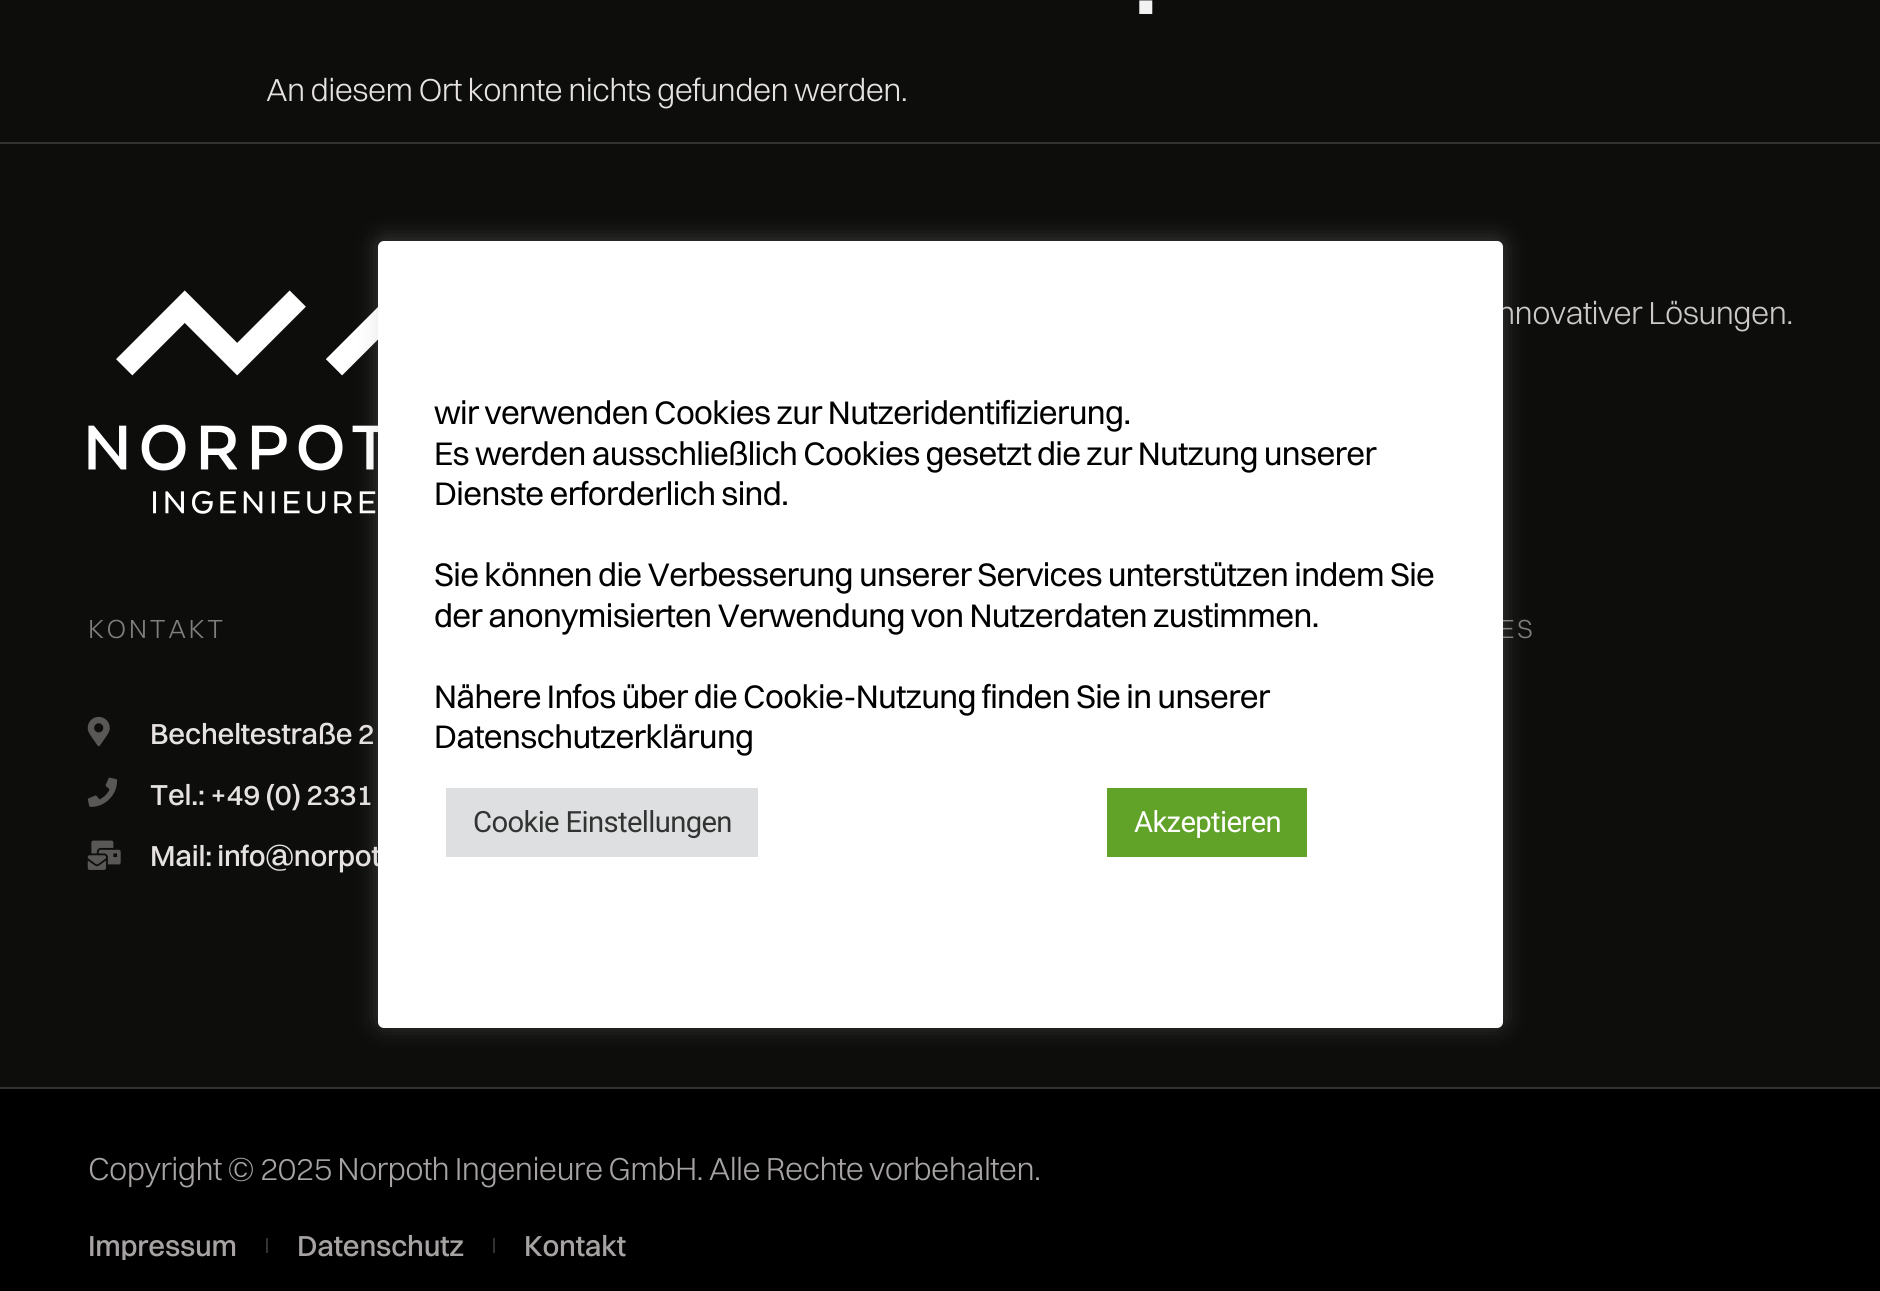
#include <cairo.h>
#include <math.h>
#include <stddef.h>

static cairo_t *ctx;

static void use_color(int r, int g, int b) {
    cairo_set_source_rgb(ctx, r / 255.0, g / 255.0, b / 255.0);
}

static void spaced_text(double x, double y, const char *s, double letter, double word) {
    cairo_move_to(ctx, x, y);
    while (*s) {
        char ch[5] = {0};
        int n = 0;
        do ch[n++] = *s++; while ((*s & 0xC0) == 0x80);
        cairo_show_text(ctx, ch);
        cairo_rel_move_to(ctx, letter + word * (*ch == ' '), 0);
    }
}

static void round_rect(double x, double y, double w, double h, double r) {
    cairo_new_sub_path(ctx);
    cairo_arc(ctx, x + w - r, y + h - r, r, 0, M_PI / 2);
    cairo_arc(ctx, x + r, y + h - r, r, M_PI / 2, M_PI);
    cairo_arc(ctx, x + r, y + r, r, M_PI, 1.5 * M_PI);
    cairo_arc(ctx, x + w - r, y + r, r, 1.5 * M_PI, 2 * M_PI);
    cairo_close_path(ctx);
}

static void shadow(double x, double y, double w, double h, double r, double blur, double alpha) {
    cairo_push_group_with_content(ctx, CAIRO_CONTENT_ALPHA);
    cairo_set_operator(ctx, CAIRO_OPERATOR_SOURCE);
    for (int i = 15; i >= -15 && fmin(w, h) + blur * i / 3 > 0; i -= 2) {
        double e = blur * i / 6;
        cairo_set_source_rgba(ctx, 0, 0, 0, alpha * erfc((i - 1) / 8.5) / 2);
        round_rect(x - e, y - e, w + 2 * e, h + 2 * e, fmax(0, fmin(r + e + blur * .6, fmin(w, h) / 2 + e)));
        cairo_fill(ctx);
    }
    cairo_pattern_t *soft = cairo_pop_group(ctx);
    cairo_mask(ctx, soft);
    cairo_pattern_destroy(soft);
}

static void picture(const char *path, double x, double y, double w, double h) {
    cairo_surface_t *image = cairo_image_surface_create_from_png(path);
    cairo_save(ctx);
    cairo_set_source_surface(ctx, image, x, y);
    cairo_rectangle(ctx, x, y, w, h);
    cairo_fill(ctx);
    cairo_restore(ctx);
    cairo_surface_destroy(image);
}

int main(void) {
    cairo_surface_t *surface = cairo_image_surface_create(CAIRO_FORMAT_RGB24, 1880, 1291);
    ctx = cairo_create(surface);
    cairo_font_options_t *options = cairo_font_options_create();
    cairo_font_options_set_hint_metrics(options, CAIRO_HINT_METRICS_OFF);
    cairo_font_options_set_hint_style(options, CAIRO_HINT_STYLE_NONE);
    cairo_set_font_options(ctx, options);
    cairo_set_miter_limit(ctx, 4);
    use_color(13, 13, 12);
    cairo_paint(ctx);
    cairo_select_font_face(ctx, "Archivo Medium", CAIRO_FONT_SLANT_NORMAL, CAIRO_FONT_WEIGHT_NORMAL);
    cairo_set_font_size(ctx, 117);
    use_color(242, 242, 242);
    spaced_text(1129, 14, ".", -4, 0);
    cairo_select_font_face(ctx, "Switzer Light", CAIRO_FONT_SLANT_NORMAL, CAIRO_FONT_WEIGHT_NORMAL);
    cairo_set_font_size(ctx, 32.2);
    use_color(229, 226, 225);
    spaced_text(266, 101, "An diesem Ort konnte nichts gefunden werden.", -0.65, 0);
    use_color(51, 50, 50);
    cairo_rectangle(ctx, 0, 142, 1880, 2);
    cairo_fill(ctx);
    picture("img1.png", 88, 290, 290, 224);
    use_color(204, 201, 200);
    spaced_text(1497, 324, "nnovativer Lösungen.", -0.65, 0);
    cairo_set_font_size(ctx, 26.5);
    use_color(128, 126, 125);
    spaced_text(88, 638, "KONTAKT", 2.5, 0);
    picture("img2.png", 87, 716, 23, 31);
    cairo_select_font_face(ctx, "Switzer Medium", CAIRO_FONT_SLANT_NORMAL, CAIRO_FONT_WEIGHT_NORMAL);
    cairo_set_font_size(ctx, 29.25);
    use_color(229, 226, 225);
    spaced_text(150, 744, "Becheltestraße 2", -0.25, 0);
    picture("img3.png", 87, 777, 31, 30);
    spaced_text(150, 805, "Tel.: +49 (0) 2331", -0.25, 0);
    picture("img4.png", 87, 840, 34, 30);
    spaced_text(150, 866, "Mail: info@norpot", -0.25, 0);
    cairo_select_font_face(ctx, "Switzer Light", CAIRO_FONT_SLANT_NORMAL, CAIRO_FONT_WEIGHT_NORMAL);
    cairo_set_font_size(ctx, 26.5);
    use_color(128, 126, 125);
    spaced_text(1499, 638, "ES", 2.5, 0);
    use_color(0, 0, 0);
    cairo_rectangle(ctx, 0, 1089, 1880, 202);
    cairo_fill(ctx);
    use_color(51, 50, 50);
    cairo_rectangle(ctx, 0, 1087, 1880, 2);
    cairo_fill(ctx);
    cairo_set_font_size(ctx, 32.2);
    use_color(166, 163, 162);
    spaced_text(88, 1180, "Copyright © 2025 Norpoth Ingenieure GmbH. Alle Rechte vorbehalten.", -0.65, -0.25);
    cairo_save(ctx);
    cairo_rectangle(ctx, 88, 1229, 1705, 31);
    cairo_clip(ctx);
    cairo_select_font_face(ctx, "Switzer Medium", CAIRO_FONT_SLANT_NORMAL, CAIRO_FONT_WEIGHT_NORMAL);
    cairo_set_font_size(ctx, 29.25);
    spaced_text(88, 1256, "Impressum", -0.25, 0);
    cairo_restore(ctx);
    use_color(51, 50, 50);
    cairo_rectangle(ctx, 266, 1238, 2, 15);
    cairo_fill(ctx);
    cairo_select_font_face(ctx, "Switzer Medium", CAIRO_FONT_SLANT_NORMAL, CAIRO_FONT_WEIGHT_NORMAL);
    cairo_set_font_size(ctx, 29.25);
    use_color(166, 163, 162);
    spaced_text(297, 1256, "Datenschutz", -0.25, 0);
    use_color(51, 50, 50);
    cairo_rectangle(ctx, 493, 1238, 2, 15);
    cairo_fill(ctx);
    use_color(166, 163, 162);
    spaced_text(524, 1256, "Kontakt", -0.25, 0);
    use_color(172, 171, 171);
    shadow(378, 239, 1125, 787, 6, 11, 0.3);
    use_color(255, 255, 255);
    round_rect(378, 241, 1125, 787, 6);
    cairo_fill(ctx);
    cairo_select_font_face(ctx, "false", CAIRO_FONT_SLANT_NORMAL, CAIRO_FONT_WEIGHT_NORMAL);
    cairo_set_font_size(ctx, 33);
    use_color(0, 0, 0);
    spaced_text(434, 424, "wir verwenden Cookies zur Nutzeridentifizierung.", -0.65, 0);
    spaced_text(434, 465, "Es werden ausschließlich Cookies gesetzt die zur Nutzung unserer", -0.65, 0);
    spaced_text(434, 505, "Dienste erforderlich sind.", -0.65, 0);
    spaced_text(434, 586, "Sie können die Verbesserung unserer Services unterstützen indem Sie", -0.65, 0);
    spaced_text(434, 627, "der anonymisierten Verwendung von Nutzerdaten zustimmen.", -0.65, 0);
    spaced_text(434, 708, "Nähere Infos über die Cookie-Nutzung finden Sie in unserer", -0.65, 0);
    spaced_text(434, 748, "Datenschutzerklärung", -0.65, 0);
    use_color(222, 223, 224);
    cairo_rectangle(ctx, 446, 788, 312, 69);
    cairo_fill(ctx);
    cairo_select_font_face(ctx, "Roboto", CAIRO_FONT_SLANT_NORMAL, CAIRO_FONT_WEIGHT_NORMAL);
    cairo_set_font_size(ctx, 29.25);
    use_color(51, 51, 51);
    spaced_text(473, 832, "Cookie Einstellungen", -0.65, 0);
    use_color(97, 162, 41);
    cairo_rectangle(ctx, 1107, 788, 200, 69);
    cairo_fill(ctx);
    use_color(255, 255, 255);
    spaced_text(1134, 832, "Akzeptieren", -0.65, 0);
    cairo_surface_write_to_png(surface, "result.png");
    cairo_font_options_destroy(options);
    cairo_destroy(ctx);
    cairo_surface_destroy(surface);
    return 0;
}
